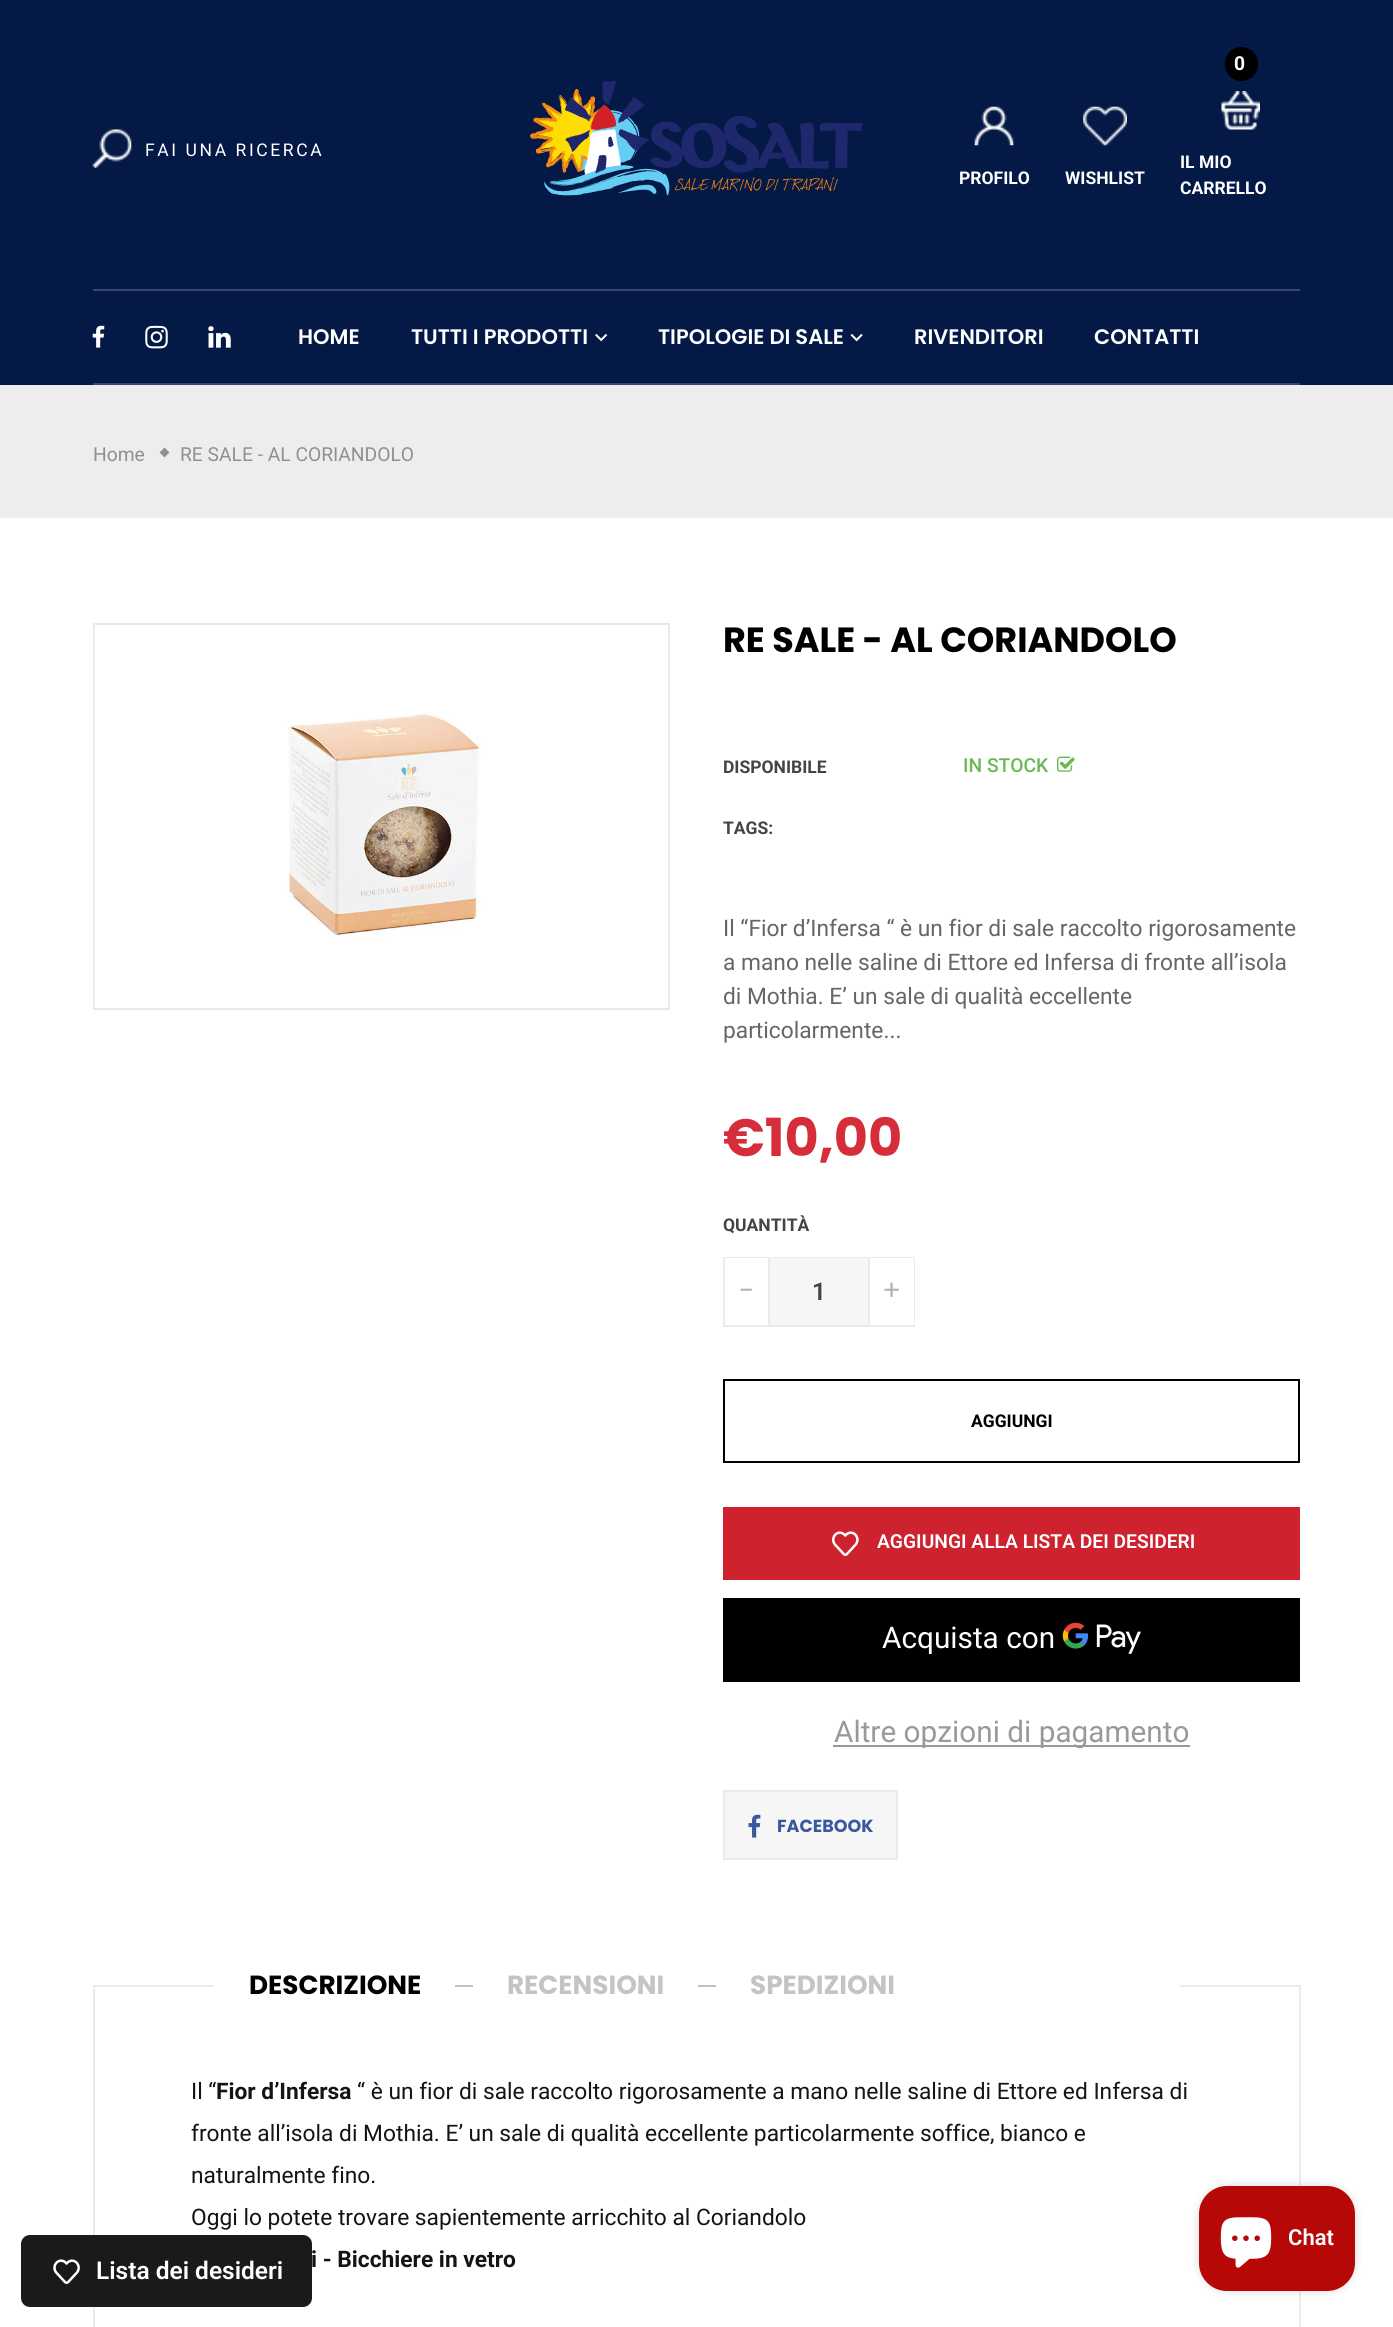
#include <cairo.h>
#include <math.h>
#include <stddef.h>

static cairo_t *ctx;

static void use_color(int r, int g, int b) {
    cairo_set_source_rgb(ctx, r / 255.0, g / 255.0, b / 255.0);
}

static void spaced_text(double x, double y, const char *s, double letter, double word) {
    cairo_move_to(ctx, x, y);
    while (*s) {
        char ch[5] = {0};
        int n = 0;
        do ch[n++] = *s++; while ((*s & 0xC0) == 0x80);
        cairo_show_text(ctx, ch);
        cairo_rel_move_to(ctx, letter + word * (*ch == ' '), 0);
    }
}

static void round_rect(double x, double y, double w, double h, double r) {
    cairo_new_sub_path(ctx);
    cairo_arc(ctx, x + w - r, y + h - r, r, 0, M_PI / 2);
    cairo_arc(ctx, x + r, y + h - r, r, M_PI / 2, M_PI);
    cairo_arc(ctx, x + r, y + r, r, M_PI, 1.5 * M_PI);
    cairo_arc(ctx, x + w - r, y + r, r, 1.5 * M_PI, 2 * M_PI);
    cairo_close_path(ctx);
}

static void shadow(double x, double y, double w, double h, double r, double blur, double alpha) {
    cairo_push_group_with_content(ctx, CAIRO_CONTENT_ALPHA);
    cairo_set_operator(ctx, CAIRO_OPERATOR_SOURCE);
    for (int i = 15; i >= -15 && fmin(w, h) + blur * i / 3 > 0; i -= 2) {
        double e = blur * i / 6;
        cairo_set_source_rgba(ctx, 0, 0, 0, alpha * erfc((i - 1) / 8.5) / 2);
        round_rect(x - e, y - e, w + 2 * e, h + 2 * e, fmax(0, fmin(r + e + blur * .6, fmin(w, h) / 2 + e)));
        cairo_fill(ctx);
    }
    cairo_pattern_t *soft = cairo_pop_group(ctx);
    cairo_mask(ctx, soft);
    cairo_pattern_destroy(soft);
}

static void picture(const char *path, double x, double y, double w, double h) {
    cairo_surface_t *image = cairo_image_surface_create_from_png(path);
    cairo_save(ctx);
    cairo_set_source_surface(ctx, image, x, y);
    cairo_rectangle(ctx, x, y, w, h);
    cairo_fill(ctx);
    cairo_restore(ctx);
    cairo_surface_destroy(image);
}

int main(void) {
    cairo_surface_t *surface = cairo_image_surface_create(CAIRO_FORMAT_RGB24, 1393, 2327);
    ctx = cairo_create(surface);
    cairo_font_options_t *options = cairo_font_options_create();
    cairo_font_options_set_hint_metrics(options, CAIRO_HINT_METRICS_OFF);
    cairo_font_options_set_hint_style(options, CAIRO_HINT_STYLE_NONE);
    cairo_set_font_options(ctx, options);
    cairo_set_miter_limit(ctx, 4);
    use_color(255, 255, 255);
    cairo_paint(ctx);
    use_color(4, 25, 70);
    cairo_rectangle(ctx, 0, 0, 1393, 385);
    cairo_fill(ctx);
    picture("img1.png", 92, 129, 40, 39);
    cairo_select_font_face(ctx, "Roboto", CAIRO_FONT_SLANT_NORMAL, CAIRO_FONT_WEIGHT_NORMAL);
    cairo_set_font_size(ctx, 17.5);
    use_color(255, 255, 255);
    spaced_text(145, 156, "FAI UNA RICERCA", 2.6, 0);
    picture("img2.png", 530, 81, 333, 115);
    picture("img3.png", 974, 106, 40, 40);
    cairo_select_font_face(ctx, "Roboto", CAIRO_FONT_SLANT_NORMAL, CAIRO_FONT_WEIGHT_BOLD);
    cairo_move_to(ctx, 959, 184);
    cairo_show_text(ctx, "PROFILO");
    picture("img4.png", 1083, 106, 44, 40);
    cairo_move_to(ctx, 1065, 184);
    cairo_show_text(ctx, "WISHLIST");
    use_color(0, 0, 0);
    round_rect(1225, 47, 33, 34, 16.5);
    cairo_fill(ctx);
    cairo_set_font_size(ctx, 19.25);
    use_color(255, 255, 255);
    cairo_move_to(ctx, 1234, 70);
    cairo_show_text(ctx, "0");
    picture("img5.png", 1221, 91, 39, 39);
    cairo_set_font_size(ctx, 17.5);
    cairo_move_to(ctx, 1180, 168);
    cairo_show_text(ctx, "IL MIO");
    cairo_move_to(ctx, 1180, 194);
    cairo_show_text(ctx, "CARRELLO");
    use_color(54, 71, 107);
    cairo_rectangle(ctx, 93, 289, 1207, 2);
    cairo_fill(ctx);
    cairo_rectangle(ctx, 93, 383, 1207, 2);
    cairo_fill(ctx);
    picture("img6.png", 92, 325, 13, 23);
    picture("img7.png", 145, 325, 23, 24);
    picture("img8.png", 208, 326, 23, 22);
    cairo_select_font_face(ctx, "Poppins SemiBold", CAIRO_FONT_SLANT_NORMAL, CAIRO_FONT_WEIGHT_NORMAL);
    cairo_set_font_size(ctx, 21);
    use_color(255, 255, 255);
    cairo_move_to(ctx, 298, 344);
    cairo_show_text(ctx, "HOME");
    cairo_move_to(ctx, 411, 344);
    cairo_show_text(ctx, "TUTTI I PRODOTTI");
    picture("img9.png", 595, 333, 13, 9);
    cairo_move_to(ctx, 658, 344);
    cairo_show_text(ctx, "TIPOLOGIE DI SALE");
    picture("img10.png", 850, 333, 13, 9);
    cairo_move_to(ctx, 914, 344);
    cairo_show_text(ctx, "RIVENDITORI");
    cairo_move_to(ctx, 1094, 344);
    cairo_show_text(ctx, "CONTATTI");
    use_color(237, 237, 237);
    cairo_rectangle(ctx, 0, 385, 1393, 133);
    cairo_fill(ctx);
    cairo_select_font_face(ctx, "Roboto", CAIRO_FONT_SLANT_NORMAL, CAIRO_FONT_WEIGHT_NORMAL);
    cairo_set_font_size(ctx, 19.25);
    use_color(144, 144, 144);
    cairo_move_to(ctx, 93, 461);
    cairo_show_text(ctx, "Home");
    cairo_new_path(ctx);
    cairo_move_to(ctx, 164.5, 447.5);
    cairo_line_to(ctx, 169.5, 452.5);
    cairo_line_to(ctx, 164.5, 457.5);
    cairo_line_to(ctx, 159.5, 452.5);
    cairo_close_path(ctx);
    cairo_fill(ctx);
    cairo_move_to(ctx, 180, 461);
    cairo_show_text(ctx, "RE SALE - AL CORIANDOLO");
    cairo_rectangle(ctx, 94, 624, 575, 385);
    use_color(232, 232, 232);
    cairo_stroke(ctx);
    picture("img11.png", 94, 625, 575, 383);
    cairo_select_font_face(ctx, "Poppins", CAIRO_FONT_SLANT_NORMAL, CAIRO_FONT_WEIGHT_BOLD);
    cairo_set_font_size(ctx, 35);
    use_color(0, 0, 0);
    cairo_move_to(ctx, 723, 652);
    cairo_show_text(ctx, "RE SALE - AL CORIANDOLO");
    cairo_select_font_face(ctx, "Roboto", CAIRO_FONT_SLANT_NORMAL, CAIRO_FONT_WEIGHT_BOLD);
    cairo_set_font_size(ctx, 17.5);
    use_color(68, 68, 68);
    cairo_move_to(ctx, 723, 773);
    cairo_show_text(ctx, "DISPONIBILE");
    cairo_select_font_face(ctx, "Roboto Medium", CAIRO_FONT_SLANT_NORMAL, CAIRO_FONT_WEIGHT_NORMAL);
    cairo_set_font_size(ctx, 19.25);
    use_color(107, 184, 83);
    cairo_move_to(ctx, 963, 772);
    cairo_show_text(ctx, "IN STOCK");
    picture("img12.png", 1057, 756, 18, 16);
    cairo_select_font_face(ctx, "Roboto", CAIRO_FONT_SLANT_NORMAL, CAIRO_FONT_WEIGHT_BOLD);
    cairo_set_font_size(ctx, 17.5);
    use_color(68, 68, 68);
    cairo_move_to(ctx, 723, 834);
    cairo_show_text(ctx, "TAGS:");
    cairo_select_font_face(ctx, "Roboto", CAIRO_FONT_SLANT_NORMAL, CAIRO_FONT_WEIGHT_NORMAL);
    cairo_set_font_size(ctx, 22.75);
    use_color(102, 102, 102);
    cairo_move_to(ctx, 723, 936);
    cairo_show_text(ctx, "Il “Fior d’Infersa “ è un fior di sale raccolto rigorosamente");
    cairo_move_to(ctx, 723, 970);
    cairo_show_text(ctx, "a mano nelle saline di Ettore ed Infersa di fronte all’isola");
    cairo_move_to(ctx, 723, 1004);
    cairo_show_text(ctx, "di Mothia. E’ un sale di qualità eccellente");
    cairo_move_to(ctx, 723, 1038);
    cairo_show_text(ctx, "particolarmente...");
    cairo_select_font_face(ctx, "Poppins", CAIRO_FONT_SLANT_NORMAL, CAIRO_FONT_WEIGHT_BOLD);
    cairo_set_font_size(ctx, 52.5);
    use_color(214, 45, 58);
    cairo_move_to(ctx, 723, 1156);
    cairo_show_text(ctx, "€10,00");
    cairo_select_font_face(ctx, "Roboto", CAIRO_FONT_SLANT_NORMAL, CAIRO_FONT_WEIGHT_BOLD);
    cairo_set_font_size(ctx, 17.5);
    use_color(68, 68, 68);
    cairo_move_to(ctx, 723, 1231);
    cairo_show_text(ctx, "QUANTITÀ");
    cairo_rectangle(ctx, 724, 1258, 190, 68);
    use_color(235, 235, 235);
    cairo_stroke(ctx);
    use_color(255, 255, 255);
    cairo_rectangle(ctx, 725, 1258, 43, 1);
    cairo_fill(ctx);
    use_color(235, 235, 235);
    cairo_rectangle(ctx, 768, 1258, 2, 67);
    cairo_fill(ctx);
    cairo_select_font_face(ctx, "Poppins", CAIRO_FONT_SLANT_NORMAL, CAIRO_FONT_WEIGHT_NORMAL);
    cairo_set_font_size(ctx, 28);
    use_color(180, 180, 180);
    cairo_move_to(ctx, 739, 1300);
    cairo_show_text(ctx, "-");
    use_color(246, 246, 246);
    cairo_rectangle(ctx, 770, 1258, 98, 67);
    cairo_fill(ctx);
    cairo_select_font_face(ctx, "Roboto SemiBold", CAIRO_FONT_SLANT_NORMAL, CAIRO_FONT_WEIGHT_NORMAL);
    cairo_set_font_size(ctx, 24.5);
    use_color(68, 68, 68);
    cairo_move_to(ctx, 812, 1300);
    cairo_show_text(ctx, "1");
    use_color(255, 255, 255);
    cairo_rectangle(ctx, 870, 1258, 44, 67);
    cairo_fill(ctx);
    use_color(235, 235, 235);
    cairo_rectangle(ctx, 868, 1258, 2, 67);
    cairo_fill(ctx);
    cairo_select_font_face(ctx, "Poppins", CAIRO_FONT_SLANT_NORMAL, CAIRO_FONT_WEIGHT_NORMAL);
    cairo_set_font_size(ctx, 28);
    use_color(180, 180, 180);
    cairo_move_to(ctx, 882, 1300);
    cairo_show_text(ctx, "+");
    cairo_rectangle(ctx, 724, 1380, 575, 82);
    use_color(0, 0, 0);
    cairo_stroke(ctx);
    cairo_select_font_face(ctx, "Roboto", CAIRO_FONT_SLANT_NORMAL, CAIRO_FONT_WEIGHT_BOLD);
    cairo_set_font_size(ctx, 17.5);
    cairo_move_to(ctx, 971, 1427);
    cairo_show_text(ctx, "AGGIUNGI");
    use_color(206, 35, 46);
    cairo_rectangle(ctx, 723, 1507, 577, 73);
    cairo_fill(ctx);
    picture("img13.png", 832, 1531, 27, 25);
    cairo_select_font_face(ctx, "Roboto SemiBold", CAIRO_FONT_SLANT_NORMAL, CAIRO_FONT_WEIGHT_NORMAL);
    cairo_set_font_size(ctx, 19.25);
    use_color(255, 255, 255);
    cairo_move_to(ctx, 877, 1548);
    cairo_show_text(ctx, "AGGIUNGI ALLA LISTA DEI DESIDERI");
    use_color(0, 0, 0);
    cairo_rectangle(ctx, 723, 1598, 577, 84);
    cairo_fill(ctx);
    cairo_select_font_face(ctx, "Roboto", CAIRO_FONT_SLANT_NORMAL, CAIRO_FONT_WEIGHT_NORMAL);
    cairo_set_font_size(ctx, 29.75);
    use_color(255, 255, 255);
    cairo_move_to(ctx, 882, 1648);
    cairo_show_text(ctx, "Acquista con");
    picture("img14.png", 1062, 1622, 79, 32);
    use_color(153, 153, 153);
    cairo_rectangle(ctx, 833, 1745, 357, 2);
    cairo_fill(ctx);
    cairo_move_to(ctx, 834, 1742);
    cairo_show_text(ctx, "Altre opzioni di pagamento");
    use_color(246, 246, 246);
    cairo_rectangle(ctx, 724, 1791, 173, 68);
    cairo_fill_preserve(ctx);
    use_color(235, 235, 235);
    cairo_stroke(ctx);
    picture("img15.png", 748, 1814, 13, 24);
    cairo_select_font_face(ctx, "Poppins", CAIRO_FONT_SLANT_NORMAL, CAIRO_FONT_WEIGHT_BOLD);
    cairo_set_font_size(ctx, 17.5);
    use_color(57, 89, 159);
    cairo_move_to(ctx, 777, 1832);
    cairo_show_text(ctx, "FACEBOOK");
    use_color(235, 235, 235);
    cairo_rectangle(ctx, 1299, 1985, 2, 342);
    cairo_fill(ctx);
    cairo_rectangle(ctx, 93, 1985, 2, 342);
    cairo_fill(ctx);
    cairo_rectangle(ctx, 93, 1985, 1207, 2);
    cairo_fill(ctx);
    use_color(255, 255, 255);
    cairo_rectangle(ctx, 214, 1985, 966, 2);
    cairo_fill(ctx);
    cairo_set_font_size(ctx, 26.25);
    use_color(0, 0, 0);
    cairo_move_to(ctx, 249, 1994);
    cairo_show_text(ctx, "DESCRIZIONE");
    use_color(192, 192, 192);
    cairo_rectangle(ctx, 455, 1985, 18, 2);
    cairo_fill(ctx);
    use_color(196, 196, 196);
    cairo_move_to(ctx, 507, 1994);
    cairo_show_text(ctx, "RECENSIONI");
    use_color(192, 192, 192);
    cairo_rectangle(ctx, 698, 1985, 18, 2);
    cairo_fill(ctx);
    use_color(196, 196, 196);
    cairo_move_to(ctx, 750, 1994);
    cairo_show_text(ctx, "SPEDIZIONI");
    cairo_select_font_face(ctx, "Roboto", CAIRO_FONT_SLANT_NORMAL, CAIRO_FONT_WEIGHT_NORMAL);
    cairo_set_font_size(ctx, 22.75);
    use_color(21, 19, 20);
    cairo_move_to(ctx, 191, 2099);
    cairo_show_text(ctx, "Il “");
    cairo_select_font_face(ctx, "Roboto", CAIRO_FONT_SLANT_NORMAL, CAIRO_FONT_WEIGHT_BOLD);
    cairo_move_to(ctx, 216, 2099);
    cairo_show_text(ctx, "Fior d’Infersa");
    cairo_select_font_face(ctx, "Roboto", CAIRO_FONT_SLANT_NORMAL, CAIRO_FONT_WEIGHT_NORMAL);
    cairo_move_to(ctx, 357, 2099);
    cairo_show_text(ctx, "“ è un fior di sale raccolto rigorosamente a mano nelle saline di Ettore ed Infersa di");
    cairo_move_to(ctx, 191, 2141);
    cairo_show_text(ctx, "fronte all’isola di Mothia. E’ un sale di qualità eccellente particolarmente soffice, bianco e");
    cairo_move_to(ctx, 191, 2183);
    cairo_show_text(ctx, "naturalmente fino.");
    cairo_move_to(ctx, 191, 2225);
    cairo_show_text(ctx, "Oggi lo potete trovare sapientemente arricchito al Coriandolo");
    cairo_select_font_face(ctx, "Roboto", CAIRO_FONT_SLANT_NORMAL, CAIRO_FONT_WEIGHT_BOLD);
    cairo_move_to(ctx, 311, 2267);
    cairo_show_text(ctx, "i - Bicchiere in vetro");
    use_color(0, 0, 0);
    shadow(1199, 2186, 156, 105, 28, 4.5, 0.15);
    use_color(183, 8, 8);
    round_rect(1199, 2186, 156, 105, 28);
    cairo_fill(ctx);
    picture("img16.png", 1220, 2217, 52, 51);
    cairo_select_font_face(ctx, "Roboto SemiBold", CAIRO_FONT_SLANT_NORMAL, CAIRO_FONT_WEIGHT_NORMAL);
    cairo_set_font_size(ctx, 22);
    use_color(255, 255, 255);
    cairo_move_to(ctx, 1288, 2245);
    cairo_show_text(ctx, "Chat");
    use_color(26, 26, 26);
    round_rect(21, 2235, 291, 72, 9);
    cairo_fill(ctx);
    picture("img17.png", 53, 2259, 27, 25);
    cairo_set_font_size(ctx, 24.5);
    use_color(255, 255, 255);
    cairo_move_to(ctx, 96, 2279);
    cairo_show_text(ctx, "Lista dei desideri");
    cairo_surface_write_to_png(surface, "result.png");
    cairo_font_options_destroy(options);
    cairo_destroy(ctx);
    cairo_surface_destroy(surface);
    return 0;
}
